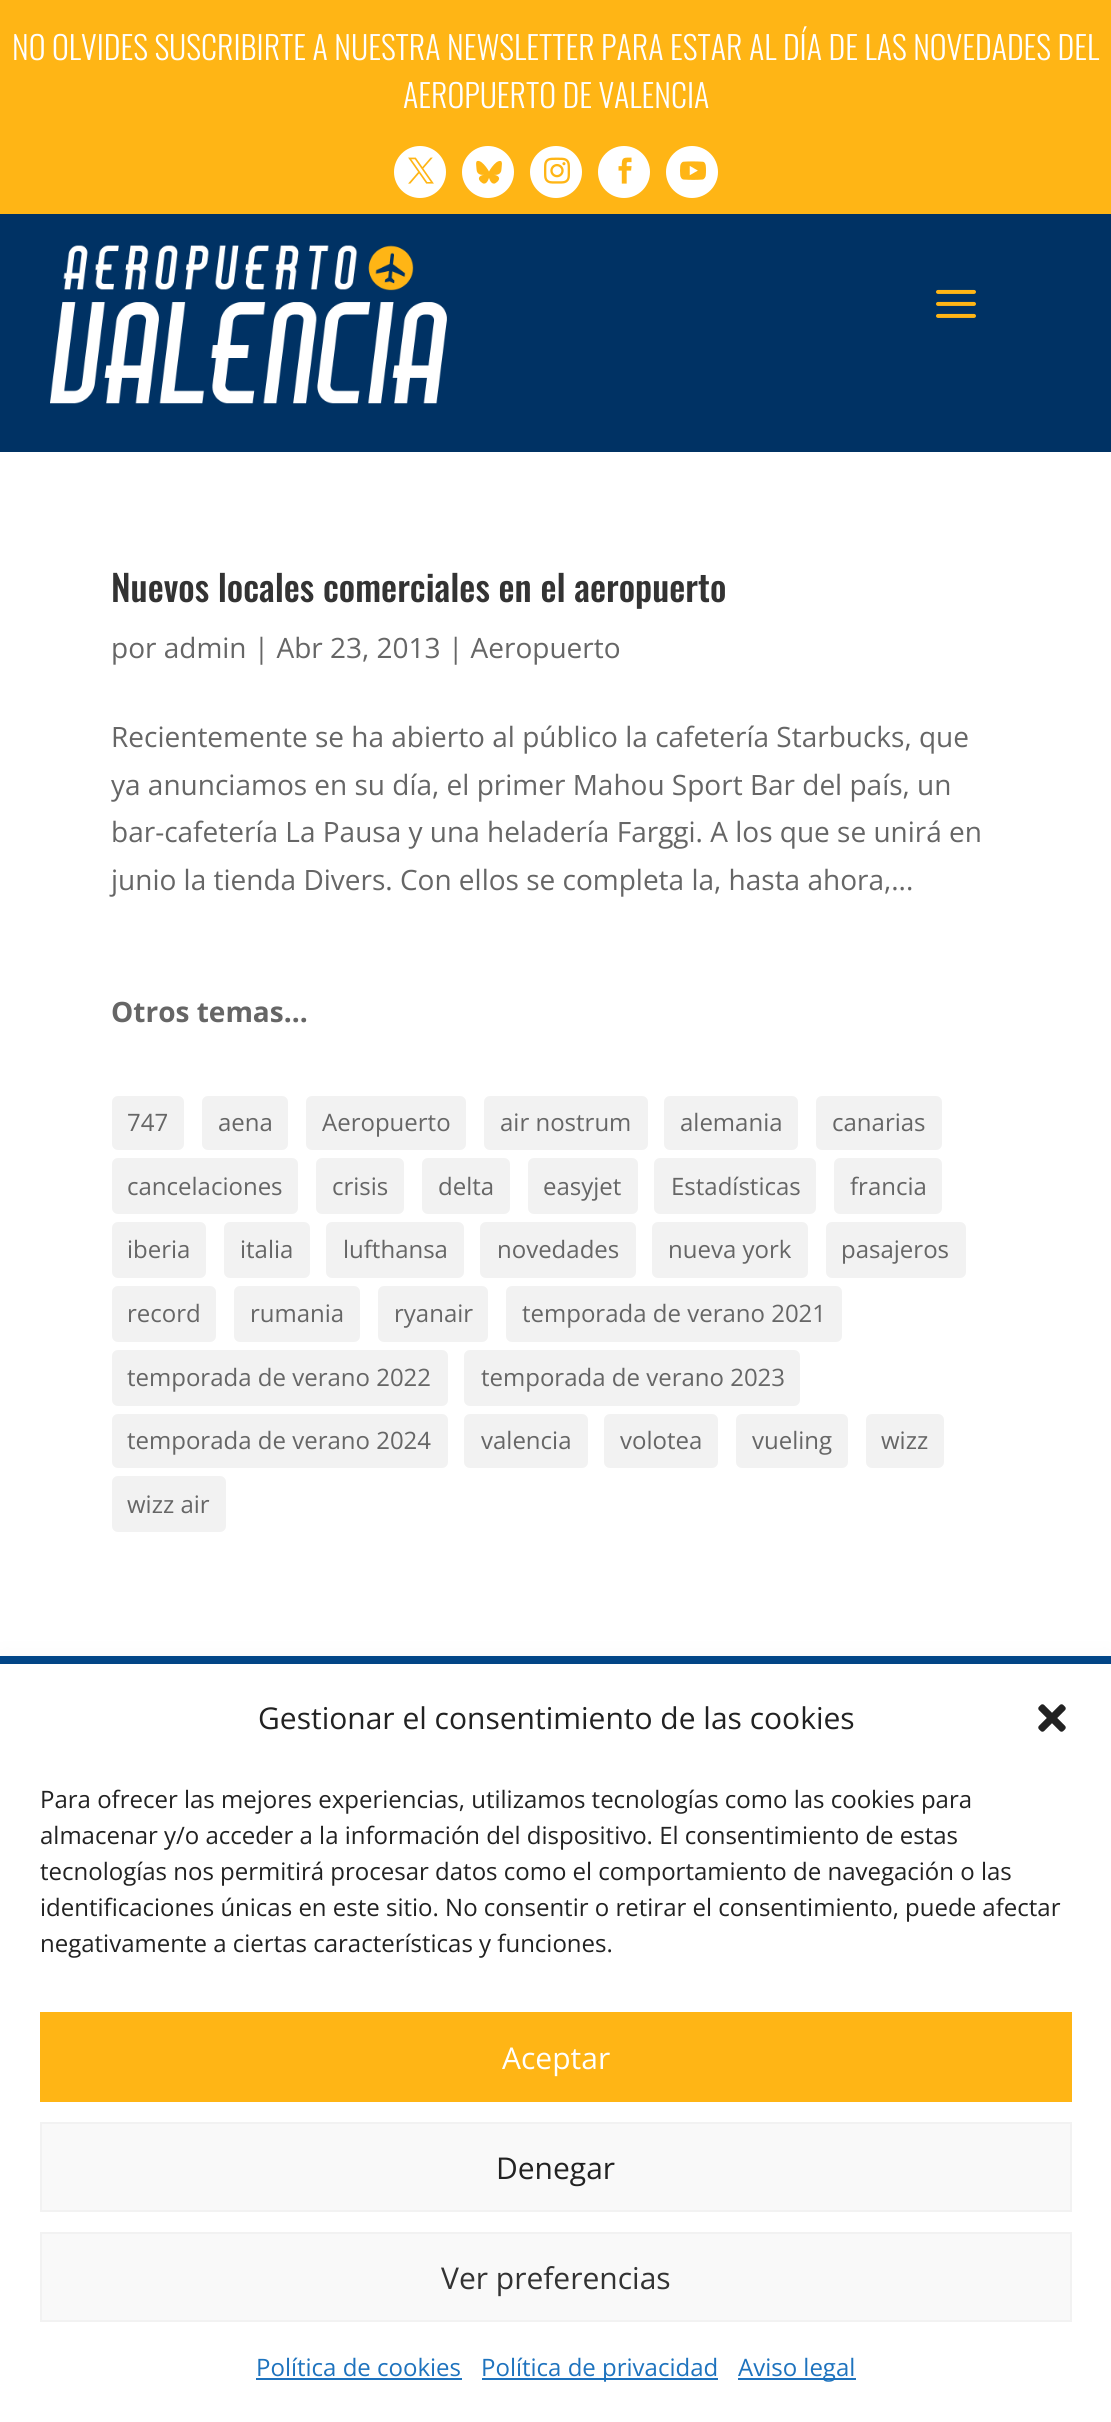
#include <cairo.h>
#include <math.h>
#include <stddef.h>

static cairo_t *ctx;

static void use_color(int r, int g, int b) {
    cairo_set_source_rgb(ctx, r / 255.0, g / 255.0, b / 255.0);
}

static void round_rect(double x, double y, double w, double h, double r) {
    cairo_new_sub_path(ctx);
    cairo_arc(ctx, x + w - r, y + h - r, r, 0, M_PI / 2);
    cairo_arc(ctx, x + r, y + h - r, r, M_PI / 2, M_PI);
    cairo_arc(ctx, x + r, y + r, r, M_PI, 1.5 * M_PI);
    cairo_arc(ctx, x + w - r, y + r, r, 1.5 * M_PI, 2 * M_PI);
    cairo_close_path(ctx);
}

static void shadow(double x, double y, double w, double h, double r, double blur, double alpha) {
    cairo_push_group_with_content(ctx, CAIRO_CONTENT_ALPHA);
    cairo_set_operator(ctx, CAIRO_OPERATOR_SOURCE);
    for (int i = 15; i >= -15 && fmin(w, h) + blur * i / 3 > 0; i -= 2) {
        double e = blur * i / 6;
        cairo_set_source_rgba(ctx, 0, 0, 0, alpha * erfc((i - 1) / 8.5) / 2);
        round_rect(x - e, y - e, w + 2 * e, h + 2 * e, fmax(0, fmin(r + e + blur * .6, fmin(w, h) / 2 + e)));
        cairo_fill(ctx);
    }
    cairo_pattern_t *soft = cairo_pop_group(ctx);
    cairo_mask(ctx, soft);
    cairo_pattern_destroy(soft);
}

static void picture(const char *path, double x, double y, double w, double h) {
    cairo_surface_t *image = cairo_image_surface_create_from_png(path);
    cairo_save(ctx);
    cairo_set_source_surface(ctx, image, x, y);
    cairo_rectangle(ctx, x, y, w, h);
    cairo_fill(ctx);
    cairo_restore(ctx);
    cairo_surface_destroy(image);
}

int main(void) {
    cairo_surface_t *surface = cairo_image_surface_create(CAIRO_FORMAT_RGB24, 1111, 2422);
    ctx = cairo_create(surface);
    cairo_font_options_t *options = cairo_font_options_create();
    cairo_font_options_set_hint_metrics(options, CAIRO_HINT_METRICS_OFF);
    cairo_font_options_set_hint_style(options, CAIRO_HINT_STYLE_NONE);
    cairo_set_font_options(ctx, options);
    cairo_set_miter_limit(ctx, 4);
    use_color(255, 255, 255);
    cairo_paint(ctx);
    use_color(255, 181, 21);
    cairo_rectangle(ctx, 0, 0, 1111, 214);
    cairo_fill(ctx);
    cairo_select_font_face(ctx, "Oswald Light", CAIRO_FONT_SLANT_NORMAL, CAIRO_FONT_WEIGHT_NORMAL);
    cairo_set_font_size(ctx, 32);
    use_color(255, 255, 255);
    cairo_move_to(ctx, 12, 60);
    cairo_show_text(ctx, "NO OLVIDES SUSCRIBIRTE A NUESTRA NEWSLETTER PARA ESTAR AL DÍA DE LAS NOVEDADES DEL");
    cairo_move_to(ctx, 403, 108);
    cairo_show_text(ctx, "AEROPUERTO DE VALENCIA");
    cairo_new_path(ctx);
    cairo_arc(ctx, 420, 172, 26, 0, 2 * M_PI);
    cairo_fill(ctx);
    picture("img1.png", 408, 157, 26, 27);
    cairo_arc(ctx, 488, 172, 26, 0, 2 * M_PI);
    cairo_fill(ctx);
    picture("img2.png", 476, 160, 26, 24);
    cairo_arc(ctx, 556, 172, 26, 0, 2 * M_PI);
    cairo_fill(ctx);
    picture("img3.png", 544, 157, 26, 27);
    cairo_arc(ctx, 624, 172, 26, 0, 2 * M_PI);
    cairo_fill(ctx);
    picture("img4.png", 618, 157, 14, 27);
    cairo_arc(ctx, 692, 172, 26, 0, 2 * M_PI);
    cairo_fill(ctx);
    picture("img5.png", 680, 161, 26, 19);
    use_color(0, 50, 100);
    cairo_rectangle(ctx, 0, 214, 1111, 238);
    cairo_fill(ctx);
    picture("img6.png", 50, 245, 397, 159);
    picture("img7.png", 936, 289, 40, 29);
    cairo_select_font_face(ctx, "Oswald Medium", CAIRO_FONT_SLANT_NORMAL, CAIRO_FONT_WEIGHT_NORMAL);
    cairo_set_font_size(ctx, 36);
    use_color(51, 51, 51);
    cairo_move_to(ctx, 111, 602);
    cairo_show_text(ctx, "Nuevos locales comerciales en el aeropuerto");
    cairo_select_font_face(ctx, "Open Sans", CAIRO_FONT_SLANT_NORMAL, CAIRO_FONT_WEIGHT_NORMAL);
    cairo_set_font_size(ctx, 28);
    use_color(102, 102, 102);
    cairo_move_to(ctx, 111, 658);
    cairo_show_text(ctx, "por admin | Abr 23, 2013 | Aeropuerto");
    cairo_move_to(ctx, 111, 747);
    cairo_show_text(ctx, "Recientemente se ha abierto al público la cafetería Starbucks, que");
    cairo_move_to(ctx, 111, 795);
    cairo_show_text(ctx, "ya anunciamos en su día, el primer Mahou Sport Bar del país, un");
    cairo_move_to(ctx, 111, 842);
    cairo_show_text(ctx, "bar-cafetería La Pausa y una heladería Farggi. A los que se unirá en");
    cairo_move_to(ctx, 111, 890);
    cairo_show_text(ctx, "junio la tienda Divers. Con ellos se completa la, hasta ahora,...");
    cairo_select_font_face(ctx, "Open Sans", CAIRO_FONT_SLANT_NORMAL, CAIRO_FONT_WEIGHT_BOLD);
    cairo_move_to(ctx, 111, 1022);
    cairo_show_text(ctx, "Otros temas...");
    use_color(242, 242, 242);
    round_rect(112, 1096, 72, 54, 6);
    cairo_fill(ctx);
    cairo_select_font_face(ctx, "Open Sans", CAIRO_FONT_SLANT_NORMAL, CAIRO_FONT_WEIGHT_NORMAL);
    cairo_set_font_size(ctx, 24);
    use_color(102, 102, 102);
    cairo_move_to(ctx, 127, 1131);
    cairo_show_text(ctx, "747");
    use_color(242, 242, 242);
    round_rect(202, 1096, 86, 54, 6);
    cairo_fill(ctx);
    use_color(102, 102, 102);
    cairo_move_to(ctx, 218, 1131);
    cairo_show_text(ctx, "aena");
    use_color(242, 242, 242);
    round_rect(306, 1096, 160, 54, 6);
    cairo_fill(ctx);
    use_color(102, 102, 102);
    cairo_move_to(ctx, 322, 1131);
    cairo_show_text(ctx, "Aeropuerto");
    use_color(242, 242, 242);
    round_rect(484, 1096, 164, 54, 6);
    cairo_fill(ctx);
    use_color(102, 102, 102);
    cairo_move_to(ctx, 500, 1131);
    cairo_show_text(ctx, "air nostrum");
    use_color(242, 242, 242);
    round_rect(664, 1096, 134, 54, 6);
    cairo_fill(ctx);
    use_color(102, 102, 102);
    cairo_move_to(ctx, 680, 1131);
    cairo_show_text(ctx, "alemania");
    use_color(242, 242, 242);
    round_rect(816, 1096, 126, 54, 6);
    cairo_fill(ctx);
    use_color(102, 102, 102);
    cairo_move_to(ctx, 832, 1131);
    cairo_show_text(ctx, "canarias");
    use_color(242, 242, 242);
    round_rect(112, 1158, 186, 56, 6);
    cairo_fill(ctx);
    use_color(102, 102, 102);
    cairo_move_to(ctx, 127, 1195);
    cairo_show_text(ctx, "cancelaciones");
    use_color(242, 242, 242);
    round_rect(316, 1158, 88, 56, 6);
    cairo_fill(ctx);
    use_color(102, 102, 102);
    cairo_move_to(ctx, 332, 1195);
    cairo_show_text(ctx, "crisis");
    use_color(242, 242, 242);
    round_rect(422, 1158, 88, 56, 6);
    cairo_fill(ctx);
    use_color(102, 102, 102);
    cairo_move_to(ctx, 438, 1195);
    cairo_show_text(ctx, "delta");
    use_color(242, 242, 242);
    round_rect(528, 1158, 110, 56, 6);
    cairo_fill(ctx);
    use_color(102, 102, 102);
    cairo_move_to(ctx, 543, 1195);
    cairo_show_text(ctx, "easyjet");
    use_color(242, 242, 242);
    round_rect(654, 1158, 162, 56, 6);
    cairo_fill(ctx);
    use_color(102, 102, 102);
    cairo_move_to(ctx, 671, 1195);
    cairo_show_text(ctx, "Estadísticas");
    use_color(242, 242, 242);
    round_rect(834, 1158, 108, 56, 6);
    cairo_fill(ctx);
    use_color(102, 102, 102);
    cairo_move_to(ctx, 850, 1195);
    cairo_show_text(ctx, "francia");
    use_color(242, 242, 242);
    round_rect(112, 1222, 94, 56, 6);
    cairo_fill(ctx);
    use_color(102, 102, 102);
    cairo_move_to(ctx, 127, 1258);
    cairo_show_text(ctx, "iberia");
    use_color(242, 242, 242);
    round_rect(224, 1222, 86, 56, 6);
    cairo_fill(ctx);
    use_color(102, 102, 102);
    cairo_move_to(ctx, 240, 1258);
    cairo_show_text(ctx, "italia");
    use_color(242, 242, 242);
    round_rect(326, 1222, 138, 56, 6);
    cairo_fill(ctx);
    use_color(102, 102, 102);
    cairo_move_to(ctx, 343, 1258);
    cairo_show_text(ctx, "lufthansa");
    use_color(242, 242, 242);
    round_rect(480, 1222, 156, 56, 6);
    cairo_fill(ctx);
    use_color(102, 102, 102);
    cairo_move_to(ctx, 497, 1258);
    cairo_show_text(ctx, "novedades");
    use_color(242, 242, 242);
    round_rect(652, 1222, 156, 56, 6);
    cairo_fill(ctx);
    use_color(102, 102, 102);
    cairo_move_to(ctx, 668, 1258);
    cairo_show_text(ctx, "nueva york");
    use_color(242, 242, 242);
    round_rect(826, 1222, 140, 56, 6);
    cairo_fill(ctx);
    use_color(102, 102, 102);
    cairo_move_to(ctx, 841, 1258);
    cairo_show_text(ctx, "pasajeros");
    use_color(242, 242, 242);
    round_rect(112, 1286, 104, 56, 6);
    cairo_fill(ctx);
    use_color(102, 102, 102);
    cairo_move_to(ctx, 127, 1322);
    cairo_show_text(ctx, "record");
    use_color(242, 242, 242);
    round_rect(234, 1286, 126, 56, 6);
    cairo_fill(ctx);
    use_color(102, 102, 102);
    cairo_move_to(ctx, 250, 1322);
    cairo_show_text(ctx, "rumania");
    use_color(242, 242, 242);
    round_rect(378, 1286, 110, 56, 6);
    cairo_fill(ctx);
    use_color(102, 102, 102);
    cairo_move_to(ctx, 394, 1322);
    cairo_show_text(ctx, "ryanair");
    use_color(242, 242, 242);
    round_rect(506, 1286, 336, 56, 6);
    cairo_fill(ctx);
    use_color(102, 102, 102);
    cairo_move_to(ctx, 522, 1322);
    cairo_show_text(ctx, "temporada de verano 2021");
    use_color(242, 242, 242);
    round_rect(112, 1350, 336, 56, 6);
    cairo_fill(ctx);
    use_color(102, 102, 102);
    cairo_move_to(ctx, 127, 1386);
    cairo_show_text(ctx, "temporada de verano 2022");
    use_color(242, 242, 242);
    round_rect(464, 1350, 336, 56, 6);
    cairo_fill(ctx);
    use_color(102, 102, 102);
    cairo_move_to(ctx, 481, 1386);
    cairo_show_text(ctx, "temporada de verano 2023");
    use_color(242, 242, 242);
    round_rect(112, 1414, 336, 54, 6);
    cairo_fill(ctx);
    use_color(102, 102, 102);
    cairo_move_to(ctx, 127, 1449);
    cairo_show_text(ctx, "temporada de verano 2024");
    use_color(242, 242, 242);
    round_rect(464, 1414, 124, 54, 6);
    cairo_fill(ctx);
    use_color(102, 102, 102);
    cairo_move_to(ctx, 481, 1449);
    cairo_show_text(ctx, "valencia");
    use_color(242, 242, 242);
    round_rect(604, 1414, 114, 54, 6);
    cairo_fill(ctx);
    use_color(102, 102, 102);
    cairo_move_to(ctx, 620, 1449);
    cairo_show_text(ctx, "volotea");
    use_color(242, 242, 242);
    round_rect(736, 1414, 112, 54, 6);
    cairo_fill(ctx);
    use_color(102, 102, 102);
    cairo_move_to(ctx, 752, 1449);
    cairo_show_text(ctx, "vueling");
    use_color(242, 242, 242);
    round_rect(866, 1414, 78, 54, 6);
    cairo_fill(ctx);
    use_color(102, 102, 102);
    cairo_move_to(ctx, 881, 1449);
    cairo_show_text(ctx, "wizz");
    use_color(242, 242, 242);
    round_rect(112, 1476, 114, 56, 6);
    cairo_fill(ctx);
    use_color(102, 102, 102);
    cairo_move_to(ctx, 127, 1513);
    cairo_show_text(ctx, "wizz air");
    use_color(2, 71, 138);
    cairo_rectangle(ctx, 0, 1656, 1111, 8);
    cairo_fill(ctx);
    use_color(0, 0, 0);
    shadow(0, 1684, 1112, 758, 0, 20, 0.19);
    use_color(255, 255, 255);
    cairo_rectangle(ctx, 0, 1664, 1111, 758);
    cairo_fill(ctx);
    cairo_set_font_size(ctx, 30);
    use_color(34, 34, 34);
    cairo_move_to(ctx, 258, 1729);
    cairo_show_text(ctx, "Gestionar el consentimiento de las cookies");
    picture("img8.png", 1038, 1704, 28, 28);
    cairo_set_font_size(ctx, 24);
    cairo_move_to(ctx, 40, 1808);
    cairo_show_text(ctx, "Para ofrecer las mejores experiencias, utilizamos tecnologías como las cookies para");
    cairo_move_to(ctx, 40, 1844);
    cairo_show_text(ctx, "almacenar y/o acceder a la información del dispositivo. El consentimiento de estas");
    cairo_move_to(ctx, 40, 1880);
    cairo_show_text(ctx, "tecnologías nos permitirá procesar datos como el comportamiento de navegación o las");
    cairo_move_to(ctx, 40, 1916);
    cairo_show_text(ctx, "identificaciones únicas en este sitio. No consentir o retirar el consentimiento, puede afectar");
    cairo_move_to(ctx, 40, 1952);
    cairo_show_text(ctx, "negativamente a ciertas características y funciones.");
    use_color(255, 181, 21);
    cairo_rectangle(ctx, 40, 2012, 1032, 90);
    cairo_fill(ctx);
    cairo_set_font_size(ctx, 30);
    use_color(255, 255, 255);
    cairo_move_to(ctx, 502, 2069);
    cairo_show_text(ctx, "Aceptar");
    use_color(249, 249, 249);
    cairo_rectangle(ctx, 41, 2123, 1030, 88);
    cairo_fill_preserve(ctx);
    use_color(242, 242, 242);
    cairo_stroke(ctx);
    use_color(34, 34, 34);
    cairo_move_to(ctx, 496, 2179);
    cairo_show_text(ctx, "Denegar");
    use_color(249, 249, 249);
    cairo_rectangle(ctx, 41, 2233, 1030, 88);
    cairo_fill_preserve(ctx);
    use_color(242, 242, 242);
    cairo_stroke(ctx);
    use_color(51, 51, 51);
    cairo_move_to(ctx, 441, 2289);
    cairo_show_text(ctx, "Ver preferencias");
    cairo_set_font_size(ctx, 24);
    use_color(30, 115, 190);
    cairo_move_to(ctx, 256, 2376);
    cairo_show_text(ctx, "Política de cookies");
    cairo_rectangle(ctx, 256, 2378, 206, 2);
    cairo_fill(ctx);
    cairo_rectangle(ctx, 482, 2378, 236, 2);
    cairo_fill(ctx);
    cairo_move_to(ctx, 481, 2376);
    cairo_show_text(ctx, "Política de privacidad");
    cairo_rectangle(ctx, 738, 2378, 118, 2);
    cairo_fill(ctx);
    cairo_move_to(ctx, 738, 2376);
    cairo_show_text(ctx, "Aviso legal");
    cairo_surface_write_to_png(surface, "result.png");
    cairo_font_options_destroy(options);
    cairo_destroy(ctx);
    cairo_surface_destroy(surface);
    return 0;
}
